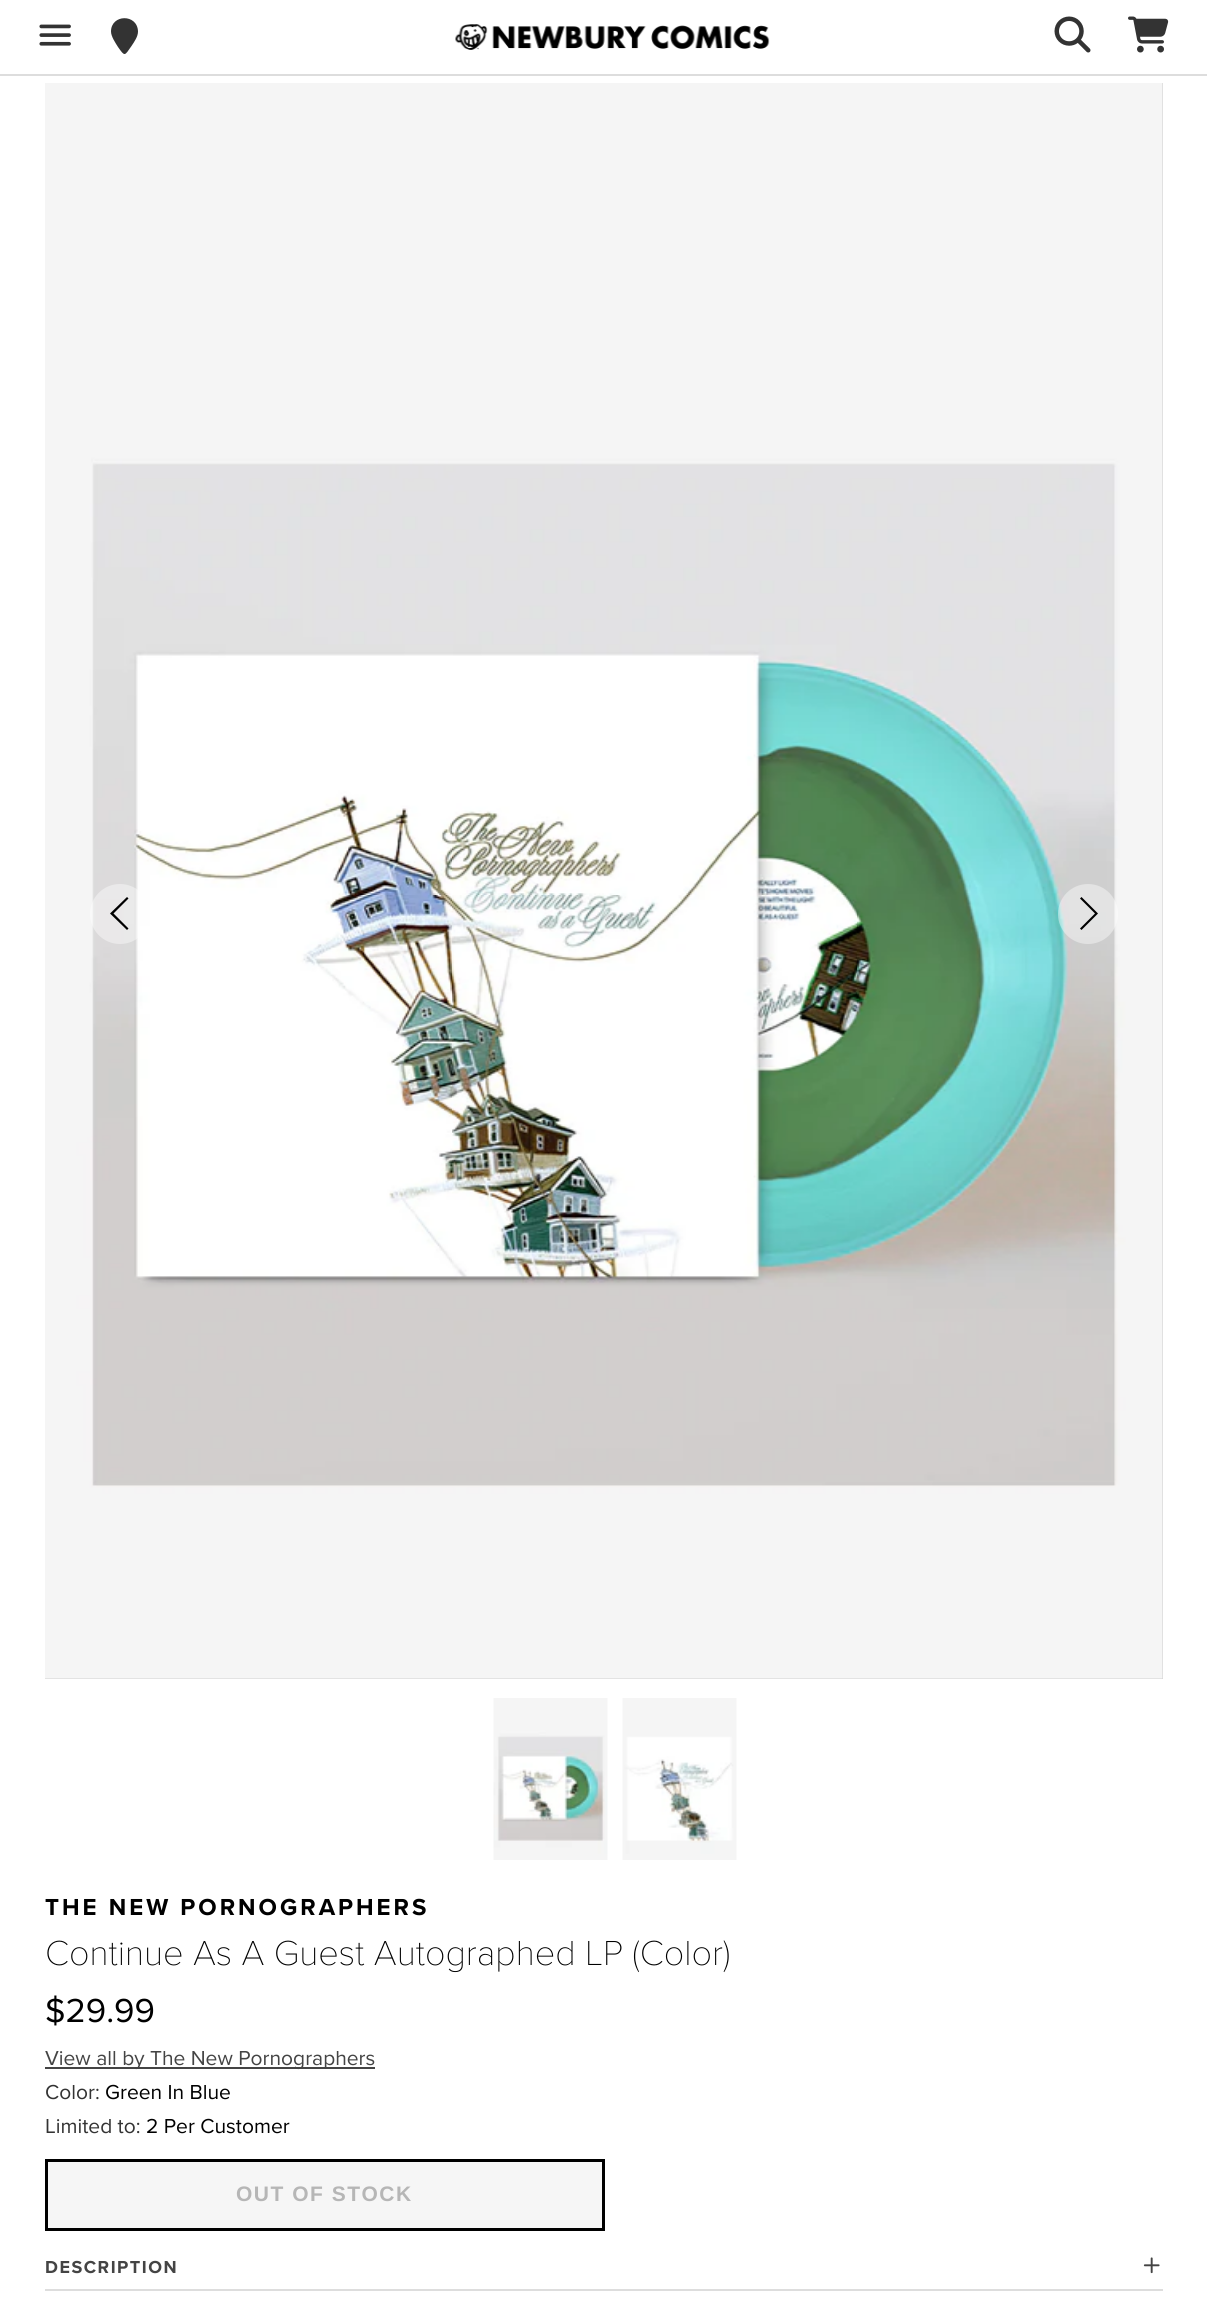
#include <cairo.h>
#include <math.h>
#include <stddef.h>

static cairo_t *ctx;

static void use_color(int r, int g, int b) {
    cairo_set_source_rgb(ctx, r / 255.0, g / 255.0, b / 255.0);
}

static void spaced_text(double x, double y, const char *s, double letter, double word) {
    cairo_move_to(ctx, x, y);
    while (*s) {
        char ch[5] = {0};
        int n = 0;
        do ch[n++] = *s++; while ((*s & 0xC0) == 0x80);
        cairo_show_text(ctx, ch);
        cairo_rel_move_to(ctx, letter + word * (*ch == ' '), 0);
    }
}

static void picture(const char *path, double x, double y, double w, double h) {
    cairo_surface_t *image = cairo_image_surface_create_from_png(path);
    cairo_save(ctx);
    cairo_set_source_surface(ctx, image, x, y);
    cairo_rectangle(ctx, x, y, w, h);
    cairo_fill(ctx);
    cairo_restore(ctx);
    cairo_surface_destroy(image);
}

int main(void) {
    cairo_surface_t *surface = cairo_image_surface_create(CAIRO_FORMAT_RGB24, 1207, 2318);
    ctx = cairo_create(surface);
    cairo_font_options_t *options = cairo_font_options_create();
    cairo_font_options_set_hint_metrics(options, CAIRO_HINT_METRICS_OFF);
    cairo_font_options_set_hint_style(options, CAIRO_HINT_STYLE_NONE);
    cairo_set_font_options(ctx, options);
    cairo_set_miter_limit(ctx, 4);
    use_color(255, 255, 255);
    cairo_paint(ctx);
    use_color(221, 221, 221);
    cairo_rectangle(ctx, 0, 74, 1207, 2);
    cairo_fill(ctx);
    picture("img1.png", 39, 24, 32, 22);
    use_color(51, 51, 51);
    cairo_new_path(ctx);
    cairo_move_to(ctx, 138, 31.5);
    cairo_curve_to(ctx, 138, 36.5, 134.5, 41.5, 131.5, 46);
    cairo_curve_to(ctx, 124.5, 56, 125, 57, 118, 47);
    cairo_curve_to(ctx, 115.5, 43, 111, 36.5, 111, 31.5);
    cairo_curve_to(ctx, 111, 14, 137.5, 13.5, 138, 31.5);
    cairo_close_path(ctx);
    cairo_fill(ctx);
    picture("img2.png", 455, 24, 315, 26);
    picture("img3.png", 1054, 16, 37, 37);
    picture("img4.png", 1128, 16, 41, 37);
    cairo_rectangle(ctx, 46, 84, 1116, 1594);
    use_color(209, 209, 209);
    cairo_stroke(ctx);
    picture("img5.png", 45, 83, 1118, 1596);
    cairo_set_source_rgba(ctx, 1, 1, 1, 0.41);
    cairo_arc(ctx, 120, 914, 30, 0, 2 * M_PI);
    cairo_fill(ctx);
    use_color(0, 0, 0);
    cairo_new_path(ctx);
    cairo_move_to(ctx, 110, 913.5);
    cairo_line_to(ctx, 127, 897);
    cairo_line_to(ctx, 128.5, 898.5);
    cairo_line_to(ctx, 113.5, 913.5);
    cairo_line_to(ctx, 128.5, 928.5);
    cairo_line_to(ctx, 127, 930);
    cairo_close_path(ctx);
    cairo_fill(ctx);
    cairo_set_source_rgba(ctx, 1, 1, 1, 0.41);
    cairo_arc(ctx, 1088, 914, 30, 0, 2 * M_PI);
    cairo_fill(ctx);
    use_color(0, 0, 0);
    cairo_new_path(ctx);
    cairo_move_to(ctx, 1098, 913.5);
    cairo_line_to(ctx, 1081.5, 930);
    cairo_line_to(ctx, 1080, 928.5);
    cairo_line_to(ctx, 1095, 913.5);
    cairo_line_to(ctx, 1080, 898.5);
    cairo_line_to(ctx, 1081.5, 897);
    cairo_close_path(ctx);
    cairo_fill(ctx);
    picture("img6.png", 493, 1698, 115, 162);
    picture("img7.png", 622, 1698, 115, 162);
    cairo_select_font_face(ctx, "Proxima Nova", CAIRO_FONT_SLANT_NORMAL, CAIRO_FONT_WEIGHT_BOLD);
    cairo_set_font_size(ctx, 24);
    spaced_text(45, 1915, "THE NEW PORNOGRAPHERS", 3, 0);
    cairo_select_font_face(ctx, "Proxima Nova Thin", CAIRO_FONT_SLANT_NORMAL, CAIRO_FONT_WEIGHT_NORMAL);
    cairo_set_font_size(ctx, 36);
    cairo_move_to(ctx, 45, 1965);
    cairo_show_text(ctx, "Continue As A Guest Autographed LP (Color)");
    cairo_select_font_face(ctx, "Proxima Nova", CAIRO_FONT_SLANT_NORMAL, CAIRO_FONT_WEIGHT_NORMAL);
    cairo_set_font_size(ctx, 34.5);
    cairo_move_to(ctx, 45, 2022);
    cairo_show_text(ctx, "$29.99");
    use_color(68, 68, 68);
    cairo_rectangle(ctx, 45, 2067, 330, 2);
    cairo_fill(ctx);
    cairo_set_font_size(ctx, 21);
    cairo_move_to(ctx, 45, 2065);
    cairo_show_text(ctx, "View all by The New Pornographers");
    use_color(51, 51, 51);
    cairo_move_to(ctx, 45, 2099);
    cairo_show_text(ctx, "Color:");
    use_color(0, 0, 0);
    cairo_move_to(ctx, 105, 2099);
    cairo_show_text(ctx, "Green In Blue");
    use_color(51, 51, 51);
    cairo_move_to(ctx, 45, 2133);
    cairo_show_text(ctx, "Limited to:");
    use_color(0, 0, 0);
    cairo_move_to(ctx, 146, 2133);
    cairo_show_text(ctx, "2 Per Customer");
    use_color(246, 246, 246);
    cairo_rectangle(ctx, 46.5, 2160.5, 557, 69);
    cairo_fill_preserve(ctx);
    use_color(0, 0, 0);
    cairo_set_line_width(ctx, 3);
    cairo_stroke(ctx);
    cairo_select_font_face(ctx, "Liberation Sans", CAIRO_FONT_SLANT_NORMAL, CAIRO_FONT_WEIGHT_BOLD);
    use_color(182, 182, 182);
    spaced_text(236, 2201, "OUT OF STOCK", 1.5, 0);
    use_color(221, 221, 221);
    cairo_rectangle(ctx, 45, 2289, 1118, 2);
    cairo_fill(ctx);
    cairo_select_font_face(ctx, "Proxima Nova", CAIRO_FONT_SLANT_NORMAL, CAIRO_FONT_WEIGHT_BOLD);
    cairo_set_font_size(ctx, 18);
    use_color(68, 68, 68);
    spaced_text(45, 2273, "DESCRIPTION", 1.5, 0);
    picture("img8.png", 1143, 2257, 17, 17);
    cairo_surface_write_to_png(surface, "result.png");
    cairo_font_options_destroy(options);
    cairo_destroy(ctx);
    cairo_surface_destroy(surface);
    return 0;
}
